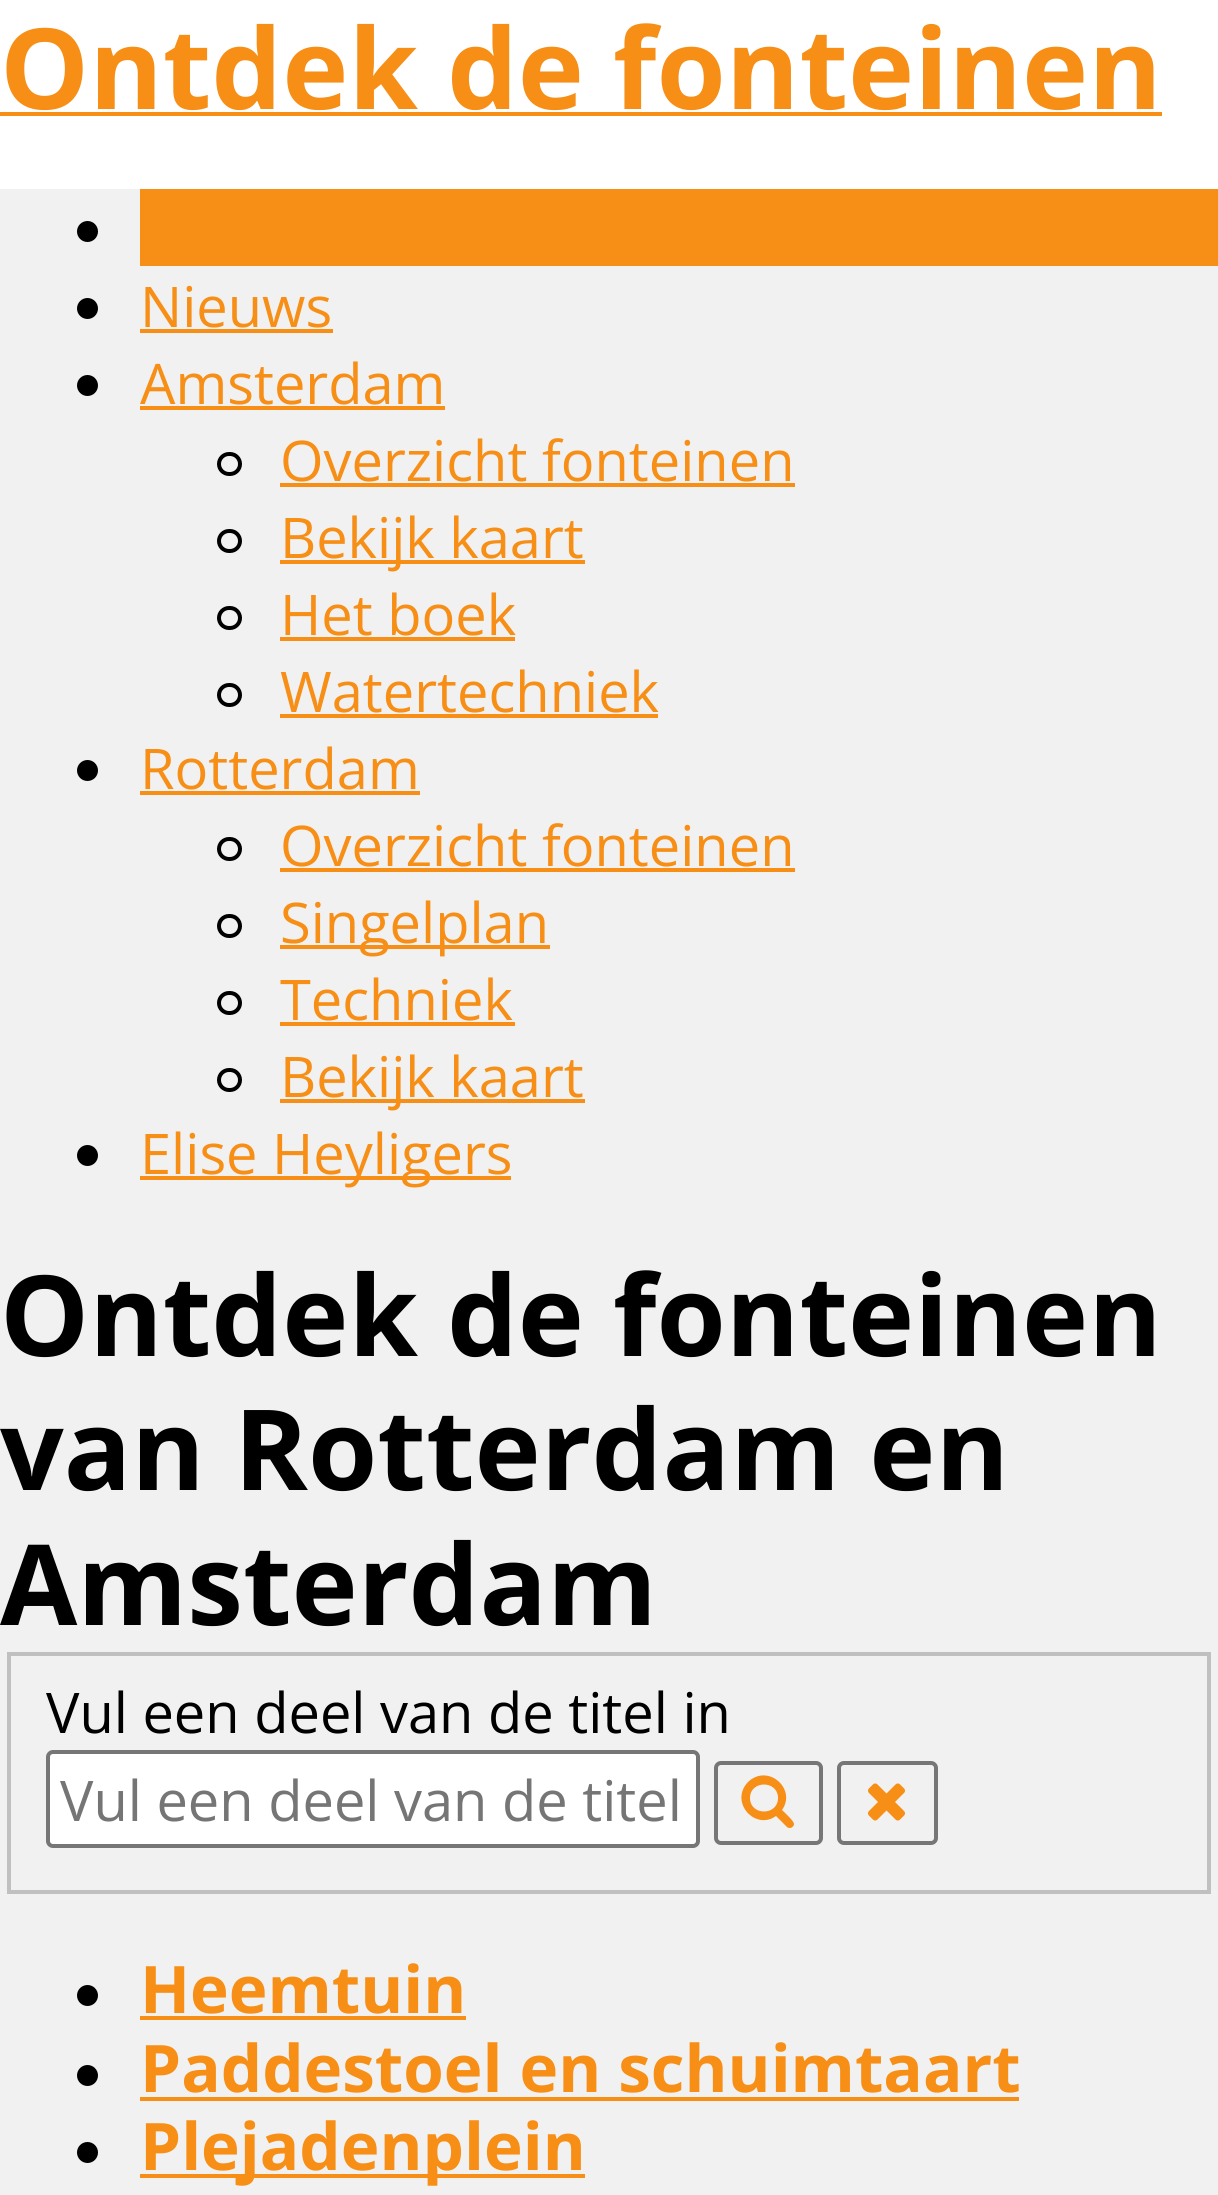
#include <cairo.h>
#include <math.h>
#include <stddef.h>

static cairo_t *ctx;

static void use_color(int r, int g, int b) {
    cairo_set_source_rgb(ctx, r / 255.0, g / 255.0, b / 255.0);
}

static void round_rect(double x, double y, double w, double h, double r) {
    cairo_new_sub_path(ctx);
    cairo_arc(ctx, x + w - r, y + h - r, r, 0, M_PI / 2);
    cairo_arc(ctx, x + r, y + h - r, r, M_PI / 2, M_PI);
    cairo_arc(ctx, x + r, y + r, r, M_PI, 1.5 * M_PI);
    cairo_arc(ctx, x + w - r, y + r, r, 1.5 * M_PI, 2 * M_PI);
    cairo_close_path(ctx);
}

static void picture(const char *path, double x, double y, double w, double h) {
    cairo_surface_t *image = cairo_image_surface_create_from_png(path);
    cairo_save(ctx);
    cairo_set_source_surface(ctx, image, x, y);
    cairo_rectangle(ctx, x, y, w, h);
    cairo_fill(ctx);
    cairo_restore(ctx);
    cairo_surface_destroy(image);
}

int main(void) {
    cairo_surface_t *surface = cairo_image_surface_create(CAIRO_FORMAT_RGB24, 1218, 2195);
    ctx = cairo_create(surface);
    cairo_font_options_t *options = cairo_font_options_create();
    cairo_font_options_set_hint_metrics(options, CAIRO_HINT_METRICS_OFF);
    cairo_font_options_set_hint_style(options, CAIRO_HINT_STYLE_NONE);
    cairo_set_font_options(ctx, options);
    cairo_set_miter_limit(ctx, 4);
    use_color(255, 255, 255);
    cairo_paint(ctx);
    cairo_select_font_face(ctx, "Open Sans", CAIRO_FONT_SLANT_NORMAL, CAIRO_FONT_WEIGHT_BOLD);
    cairo_set_font_size(ctx, 112);
    use_color(247, 142, 22);
    cairo_move_to(ctx, 0, 109);
    cairo_show_text(ctx, "Ontdek de fonteinen");
    cairo_rectangle(ctx, 0, 112, 1162, 4);
    cairo_fill(ctx);
    use_color(241, 241, 241);
    cairo_rectangle(ctx, 0, 189, 1218, 2006);
    cairo_fill(ctx);
    use_color(247, 142, 22);
    cairo_rectangle(ctx, 140, 189, 1078, 77);
    cairo_fill(ctx);
    use_color(0, 0, 0);
    cairo_arc(ctx, 87.5, 231.5, 10.5, 0, 2 * M_PI);
    cairo_fill(ctx);
    cairo_arc(ctx, 87.5, 308.5, 10.5, 0, 2 * M_PI);
    cairo_fill(ctx);
    cairo_select_font_face(ctx, "Open Sans", CAIRO_FONT_SLANT_NORMAL, CAIRO_FONT_WEIGHT_NORMAL);
    cairo_set_font_size(ctx, 56);
    use_color(247, 142, 22);
    cairo_move_to(ctx, 140, 327);
    cairo_show_text(ctx, "Nieuws");
    cairo_rectangle(ctx, 140, 329, 193, 4);
    cairo_fill(ctx);
    use_color(0, 0, 0);
    cairo_arc(ctx, 87.5, 385.5, 10.5, 0, 2 * M_PI);
    cairo_fill(ctx);
    use_color(247, 142, 22);
    cairo_move_to(ctx, 140, 404);
    cairo_show_text(ctx, "Amsterdam");
    cairo_rectangle(ctx, 140, 406, 305, 4);
    cairo_fill(ctx);
    round_rect(219, 454, 21, 20, 10);
    use_color(0, 0, 0);
    cairo_set_line_width(ctx, 4);
    cairo_stroke(ctx);
    use_color(247, 142, 22);
    cairo_move_to(ctx, 280, 481);
    cairo_show_text(ctx, "Overzicht fonteinen");
    cairo_rectangle(ctx, 280, 483, 515, 4);
    cairo_fill(ctx);
    round_rect(219, 531, 21, 20, 10);
    use_color(0, 0, 0);
    cairo_stroke(ctx);
    use_color(247, 142, 22);
    cairo_rectangle(ctx, 280, 560, 305, 4);
    cairo_fill(ctx);
    cairo_move_to(ctx, 280, 558);
    cairo_show_text(ctx, "Bekijk kaart");
    round_rect(219, 608, 21, 20, 10);
    use_color(0, 0, 0);
    cairo_stroke(ctx);
    use_color(247, 142, 22);
    cairo_move_to(ctx, 280, 635);
    cairo_show_text(ctx, "Het boek");
    cairo_rectangle(ctx, 280, 637, 235, 4);
    cairo_fill(ctx);
    round_rect(219, 685, 21, 20, 10);
    use_color(0, 0, 0);
    cairo_stroke(ctx);
    use_color(247, 142, 22);
    cairo_move_to(ctx, 280, 712);
    cairo_show_text(ctx, "Watertechniek");
    cairo_rectangle(ctx, 280, 714, 378, 4);
    cairo_fill(ctx);
    use_color(0, 0, 0);
    cairo_arc(ctx, 87.5, 770.5, 10.5, 0, 2 * M_PI);
    cairo_fill(ctx);
    use_color(247, 142, 22);
    cairo_move_to(ctx, 140, 789);
    cairo_show_text(ctx, "Rotterdam");
    cairo_rectangle(ctx, 140, 791, 280, 4);
    cairo_fill(ctx);
    round_rect(219, 839, 21, 20, 10);
    use_color(0, 0, 0);
    cairo_stroke(ctx);
    use_color(247, 142, 22);
    cairo_move_to(ctx, 280, 866);
    cairo_show_text(ctx, "Overzicht fonteinen");
    cairo_rectangle(ctx, 280, 868, 515, 4);
    cairo_fill(ctx);
    round_rect(219, 916, 21, 20, 10);
    use_color(0, 0, 0);
    cairo_stroke(ctx);
    use_color(247, 142, 22);
    cairo_rectangle(ctx, 280, 945, 270, 4);
    cairo_fill(ctx);
    cairo_move_to(ctx, 280, 943);
    cairo_show_text(ctx, "Singelplan");
    round_rect(219, 993, 21, 20, 10);
    use_color(0, 0, 0);
    cairo_stroke(ctx);
    use_color(247, 142, 22);
    cairo_move_to(ctx, 280, 1020);
    cairo_show_text(ctx, "Techniek");
    cairo_rectangle(ctx, 280, 1022, 235, 4);
    cairo_fill(ctx);
    round_rect(219, 1070, 21, 20, 10);
    use_color(0, 0, 0);
    cairo_stroke(ctx);
    use_color(247, 142, 22);
    cairo_rectangle(ctx, 280, 1099, 305, 4);
    cairo_fill(ctx);
    cairo_move_to(ctx, 280, 1097);
    cairo_show_text(ctx, "Bekijk kaart");
    use_color(0, 0, 0);
    cairo_new_path(ctx);
    cairo_arc(ctx, 87.5, 1155.5, 10.5, 0, 2 * M_PI);
    cairo_fill(ctx);
    use_color(247, 142, 22);
    cairo_rectangle(ctx, 140, 1176, 371, 4);
    cairo_fill(ctx);
    cairo_move_to(ctx, 140, 1174);
    cairo_show_text(ctx, "Elise Heyligers");
    cairo_select_font_face(ctx, "Open Sans", CAIRO_FONT_SLANT_NORMAL, CAIRO_FONT_WEIGHT_BOLD);
    cairo_set_font_size(ctx, 112);
    use_color(0, 0, 0);
    cairo_move_to(ctx, 0, 1356);
    cairo_show_text(ctx, "Ontdek de fonteinen");
    cairo_move_to(ctx, 0, 1490);
    cairo_show_text(ctx, "van Rotterdam en");
    cairo_move_to(ctx, 0, 1625);
    cairo_show_text(ctx, "Amsterdam");
    cairo_rectangle(ctx, 9, 1654, 1200, 238);
    use_color(192, 192, 192);
    cairo_stroke(ctx);
    cairo_select_font_face(ctx, "Open Sans", CAIRO_FONT_SLANT_NORMAL, CAIRO_FONT_WEIGHT_NORMAL);
    cairo_set_font_size(ctx, 56);
    use_color(0, 0, 0);
    cairo_move_to(ctx, 46, 1733);
    cairo_show_text(ctx, "Vul een deel van de titel in");
    use_color(255, 255, 255);
    round_rect(48, 1752, 650, 94, 5);
    cairo_fill_preserve(ctx);
    use_color(118, 118, 118);
    cairo_stroke(ctx);
    use_color(117, 117, 117);
    cairo_move_to(ctx, 60, 1821);
    cairo_show_text(ctx, "Vul een deel van de titel");
    round_rect(716, 1763, 105, 80, 5);
    use_color(118, 118, 118);
    cairo_stroke(ctx);
    use_color(247, 142, 22);
    cairo_new_path(ctx);
    cairo_move_to(ctx, 778, 1798);
    cairo_curve_to(ctx, 778, 1816, 750, 1816, 750, 1798);
    cairo_curve_to(ctx, 750, 1780, 778, 1780, 778, 1798);
    cairo_close_path(ctx);
    cairo_move_to(ctx, 794, 1824);
    cairo_curve_to(ctx, 794, 1821, 785, 1813, 782, 1810);
    cairo_curve_to(ctx, 797, 1789, 768, 1763, 748, 1782);
    cairo_curve_to(ctx, 729, 1802, 755, 1831, 776, 1816);
    cairo_line_to(ctx, 787, 1827);
    cairo_curve_to(ctx, 788, 1828, 789, 1828, 790, 1828);
    cairo_curve_to(ctx, 792, 1828, 794, 1826, 794, 1824);
    cairo_close_path(ctx);
    cairo_fill(ctx);
    round_rect(839, 1763, 97, 80, 5);
    use_color(118, 118, 118);
    cairo_stroke(ctx);
    picture("img1.png", 868, 1783, 37, 38);
    use_color(0, 0, 0);
    cairo_arc(ctx, 87.5, 1995.5, 10.5, 0, 2 * M_PI);
    cairo_fill(ctx);
    cairo_select_font_face(ctx, "Open Sans", CAIRO_FONT_SLANT_NORMAL, CAIRO_FONT_WEIGHT_BOLD);
    cairo_set_font_size(ctx, 65.5);
    use_color(247, 142, 22);
    cairo_move_to(ctx, 140, 2013);
    cairo_show_text(ctx, "Heemtuin");
    cairo_rectangle(ctx, 140, 2016, 326, 4);
    cairo_fill(ctx);
    use_color(0, 0, 0);
    cairo_arc(ctx, 87.5, 2075.5, 10.5, 0, 2 * M_PI);
    cairo_fill(ctx);
    use_color(247, 142, 22);
    cairo_move_to(ctx, 140, 2092);
    cairo_show_text(ctx, "Paddestoel en schuimtaart");
    cairo_rectangle(ctx, 140, 2097, 879, 4);
    cairo_fill(ctx);
    use_color(0, 0, 0);
    cairo_arc(ctx, 87.5, 2152.5, 10.5, 0, 2 * M_PI);
    cairo_fill(ctx);
    use_color(247, 142, 22);
    cairo_rectangle(ctx, 140, 2174, 445, 4);
    cairo_fill(ctx);
    cairo_move_to(ctx, 140, 2170);
    cairo_show_text(ctx, "Plejadenplein");
    cairo_surface_write_to_png(surface, "result.png");
    cairo_font_options_destroy(options);
    cairo_destroy(ctx);
    cairo_surface_destroy(surface);
    return 0;
}
